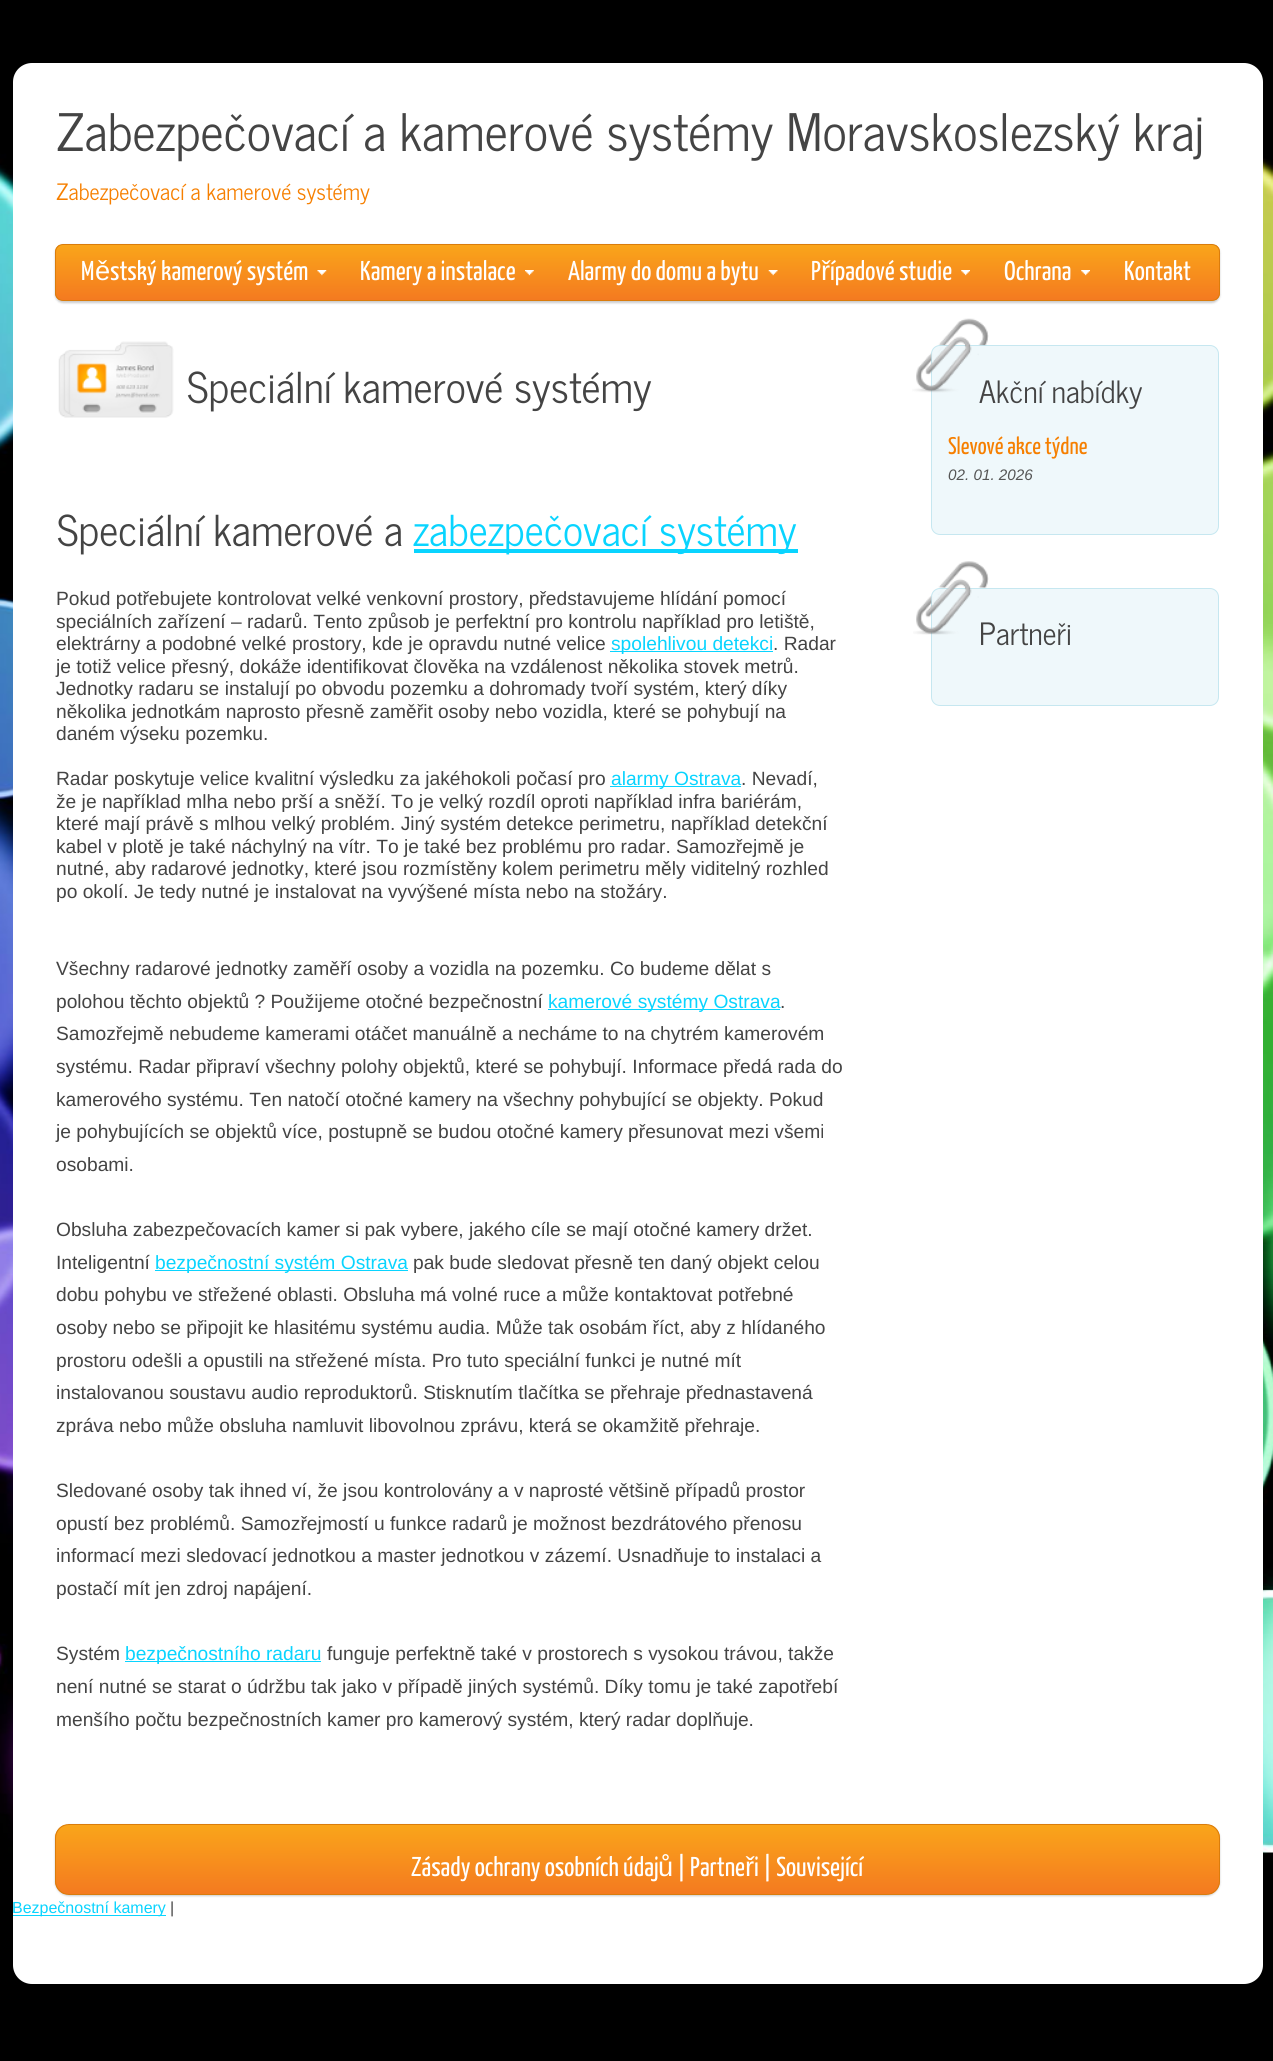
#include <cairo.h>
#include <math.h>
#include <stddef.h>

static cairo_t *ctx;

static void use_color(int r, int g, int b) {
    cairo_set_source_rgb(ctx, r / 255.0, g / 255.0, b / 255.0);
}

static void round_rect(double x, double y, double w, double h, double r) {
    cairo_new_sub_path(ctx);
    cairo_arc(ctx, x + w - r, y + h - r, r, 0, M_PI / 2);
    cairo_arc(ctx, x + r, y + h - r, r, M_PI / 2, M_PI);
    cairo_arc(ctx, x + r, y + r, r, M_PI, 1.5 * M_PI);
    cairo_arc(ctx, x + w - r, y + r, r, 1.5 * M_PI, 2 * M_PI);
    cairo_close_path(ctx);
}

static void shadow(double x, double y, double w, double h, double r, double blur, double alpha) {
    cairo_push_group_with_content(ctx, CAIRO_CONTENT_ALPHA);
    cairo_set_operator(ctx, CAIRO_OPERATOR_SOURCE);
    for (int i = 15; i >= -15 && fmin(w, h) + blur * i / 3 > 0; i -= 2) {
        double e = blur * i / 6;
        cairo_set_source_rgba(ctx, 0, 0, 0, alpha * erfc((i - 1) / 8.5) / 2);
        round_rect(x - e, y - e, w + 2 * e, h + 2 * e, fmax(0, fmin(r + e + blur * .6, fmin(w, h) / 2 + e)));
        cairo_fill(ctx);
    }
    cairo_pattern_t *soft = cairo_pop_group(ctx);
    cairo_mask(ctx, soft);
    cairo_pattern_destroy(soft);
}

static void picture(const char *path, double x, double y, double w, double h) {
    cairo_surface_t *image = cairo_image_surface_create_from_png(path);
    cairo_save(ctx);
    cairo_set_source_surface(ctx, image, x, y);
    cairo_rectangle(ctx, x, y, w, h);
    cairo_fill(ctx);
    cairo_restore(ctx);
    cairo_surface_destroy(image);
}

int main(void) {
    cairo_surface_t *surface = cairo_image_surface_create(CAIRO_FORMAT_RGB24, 1273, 2061);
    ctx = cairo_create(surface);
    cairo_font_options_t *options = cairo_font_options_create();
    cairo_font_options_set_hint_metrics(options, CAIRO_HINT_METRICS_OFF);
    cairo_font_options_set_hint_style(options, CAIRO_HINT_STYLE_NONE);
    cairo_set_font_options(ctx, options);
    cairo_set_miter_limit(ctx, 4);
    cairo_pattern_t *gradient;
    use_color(0, 0, 0);
    cairo_paint(ctx);
    picture("img1.png", 0, 137, 1273, 1809);
    use_color(255, 255, 255);
    round_rect(13, 63, 1250, 1921, 19);
    cairo_fill(ctx);
    cairo_select_font_face(ctx, "News Cycle", CAIRO_FONT_SLANT_NORMAL, CAIRO_FONT_WEIGHT_NORMAL);
    cairo_set_font_size(ctx, 51.2);
    use_color(68, 68, 68);
    cairo_move_to(ctx, 56, 151);
    cairo_show_text(ctx, "Zabezpečovací a kamerové systémy Moravskoslezský kraj");
    cairo_set_font_size(ctx, 22.4);
    use_color(246, 127, 0);
    cairo_move_to(ctx, 56, 200);
    cairo_show_text(ctx, "Zabezpečovací a kamerové systémy");
    use_color(0, 0, 0);
    shadow(55, 245, 1165, 58, 8, 1, 0.2);
    cairo_save(ctx);
    round_rect(55, 244, 1165, 57, 8);
    cairo_clip(ctx);
    gradient = cairo_pattern_create_linear(56, 245, 56, 300);
    cairo_pattern_add_color_stop_rgba(gradient, 0, 0.98, 0.647, 0.102, 1);
    cairo_pattern_add_color_stop_rgba(gradient, 1, 0.957, 0.478, 0.125, 1);
    cairo_set_source(ctx, gradient);
    cairo_pattern_destroy(gradient);
    cairo_rectangle(ctx, 55, 245, 1165, 55);
    cairo_fill(ctx);
    cairo_restore(ctx);
    round_rect(55.5, 244.5, 1164, 56, 7.5);
    use_color(218, 124, 12);
    cairo_set_line_width(ctx, 1);
    cairo_stroke(ctx);
    cairo_select_font_face(ctx, "Yanone Kaffeesatz", CAIRO_FONT_SLANT_NORMAL, CAIRO_FONT_WEIGHT_NORMAL);
    cairo_set_font_size(ctx, 27.25);
    use_color(255, 255, 255);
    cairo_move_to(ctx, 81, 280);
    cairo_show_text(ctx, "M");
    cairo_select_font_face(ctx, "Liberation Sans", CAIRO_FONT_SLANT_NORMAL, CAIRO_FONT_WEIGHT_NORMAL);
    cairo_move_to(ctx, 95, 280);
    cairo_show_text(ctx, "ě");
    cairo_select_font_face(ctx, "Yanone Kaffeesatz", CAIRO_FONT_SLANT_NORMAL, CAIRO_FONT_WEIGHT_NORMAL);
    cairo_move_to(ctx, 110, 280);
    cairo_show_text(ctx, "stský kamerový systém");
    picture("img2.png", 317, 270, 10, 6);
    cairo_move_to(ctx, 360, 280);
    cairo_show_text(ctx, "Kamery a instalace");
    picture("img3.png", 525, 270, 9, 6);
    cairo_move_to(ctx, 568, 280);
    cairo_show_text(ctx, "Alarmy do domu a bytu");
    picture("img4.png", 768, 270, 10, 6);
    cairo_move_to(ctx, 811, 280);
    cairo_show_text(ctx, "P");
    cairo_select_font_face(ctx, "Liberation Sans", CAIRO_FONT_SLANT_NORMAL, CAIRO_FONT_WEIGHT_NORMAL);
    cairo_move_to(ctx, 821, 280);
    cairo_show_text(ctx, "ř");
    cairo_select_font_face(ctx, "Yanone Kaffeesatz", CAIRO_FONT_SLANT_NORMAL, CAIRO_FONT_WEIGHT_NORMAL);
    cairo_move_to(ctx, 830, 280);
    cairo_show_text(ctx, "ípadové studie");
    picture("img5.png", 961, 270, 9, 6);
    cairo_move_to(ctx, 1004, 280);
    cairo_show_text(ctx, "Ochrana");
    picture("img5.png", 1081, 270, 9, 6);
    cairo_move_to(ctx, 1124, 280);
    cairo_show_text(ctx, "Kontakt");
    picture("img6.png", 58, 341, 116, 77);
    cairo_select_font_face(ctx, "News Cycle", CAIRO_FONT_SLANT_NORMAL, CAIRO_FONT_WEIGHT_NORMAL);
    cairo_set_font_size(ctx, 42.25);
    use_color(68, 68, 68);
    cairo_move_to(ctx, 187, 403);
    cairo_show_text(ctx, "Speciální kamerové systémy");
    cairo_move_to(ctx, 57, 546);
    cairo_show_text(ctx, "Speciální kamerové a");
    use_color(9, 212, 255);
    cairo_rectangle(ctx, 414, 549, 384, 4);
    cairo_fill(ctx);
    cairo_move_to(ctx, 413, 546);
    cairo_show_text(ctx, "zabezpečovací systémy");
    cairo_select_font_face(ctx, "Liberation Sans", CAIRO_FONT_SLANT_NORMAL, CAIRO_FONT_WEIGHT_NORMAL);
    cairo_set_font_size(ctx, 19.2);
    use_color(68, 68, 68);
    cairo_move_to(ctx, 56, 605);
    cairo_show_text(ctx, "Pokud potřebujete kontrolovat velké venkovní prostory, představujeme hlídání pomocí");
    cairo_move_to(ctx, 56, 628);
    cairo_show_text(ctx, "speciálních zařízení – radarů. Tento způsob je perfektní pro kontrolu například pro letiště,");
    cairo_move_to(ctx, 56, 650);
    cairo_show_text(ctx, "elektrárny a podobné velké prostory, kde je opravdu nutné velice");
    use_color(9, 212, 255);
    cairo_rectangle(ctx, 610, 651, 163, 1);
    cairo_fill(ctx);
    cairo_move_to(ctx, 611, 650);
    cairo_show_text(ctx, "spolehlivou detekci");
    use_color(68, 68, 68);
    cairo_move_to(ctx, 773, 650);
    cairo_show_text(ctx, ". Radar");
    cairo_move_to(ctx, 56, 673);
    cairo_show_text(ctx, "je totiž velice přesný, dokáže identifikovat člověka na vzdálenost několika stovek metrů.");
    cairo_move_to(ctx, 56, 695);
    cairo_show_text(ctx, "Jednotky radaru se instalují po obvodu pozemku a dohromady tvoří systém, který díky");
    cairo_move_to(ctx, 56, 718);
    cairo_show_text(ctx, "několika jednotkám naprosto přesně zaměřit osoby nebo vozidla, které se pohybují na");
    cairo_move_to(ctx, 56, 740);
    cairo_show_text(ctx, "daném výseku pozemku.");
    cairo_move_to(ctx, 56, 785);
    cairo_show_text(ctx, "Radar poskytuje velice kvalitní výsledku za jakéhokoli počasí pro");
    use_color(9, 212, 255);
    cairo_rectangle(ctx, 610, 786, 131, 1);
    cairo_fill(ctx);
    cairo_move_to(ctx, 611, 785);
    cairo_show_text(ctx, "alarmy Ostrava");
    use_color(68, 68, 68);
    cairo_move_to(ctx, 741, 785);
    cairo_show_text(ctx, ". Nevadí,");
    cairo_move_to(ctx, 56, 808);
    cairo_show_text(ctx, "že je například mlha nebo prší a sněží. To je velký rozdíl oproti například infra bariérám,");
    cairo_move_to(ctx, 56, 830);
    cairo_show_text(ctx, "které mají právě s mlhou velký problém. Jiný systém detekce perimetru, například detekční");
    cairo_move_to(ctx, 56, 853);
    cairo_show_text(ctx, "kabel v plotě je také náchylný na vítr. To je také bez problému pro radar. Samozřejmě je");
    cairo_move_to(ctx, 56, 875);
    cairo_show_text(ctx, "nutné, aby radarové jednotky, které jsou rozmístěny kolem perimetru měly viditelný rozhled");
    cairo_move_to(ctx, 56, 898);
    cairo_show_text(ctx, "po okolí. Je tedy nutné je instalovat na vyvýšené místa nebo na stožáry.");
    cairo_move_to(ctx, 56, 975);
    cairo_show_text(ctx, "Všechny radarové jednotky zaměří osoby a vozidla na pozemku. Co budeme dělat s");
    cairo_move_to(ctx, 56, 1008);
    cairo_show_text(ctx, "polohou těchto objektů ? Použijeme otočné bezpečnostní");
    use_color(9, 212, 255);
    cairo_rectangle(ctx, 548, 1009, 232, 1);
    cairo_fill(ctx);
    cairo_move_to(ctx, 548, 1008);
    cairo_show_text(ctx, "kamerové systémy Ostrava");
    use_color(68, 68, 68);
    cairo_move_to(ctx, 780, 1008);
    cairo_show_text(ctx, ".");
    cairo_move_to(ctx, 56, 1040);
    cairo_show_text(ctx, "Samozřejmě nebudeme kamerami otáčet manuálně a necháme to na chytrém kamerovém");
    cairo_move_to(ctx, 56, 1073);
    cairo_show_text(ctx, "systému. Radar připraví všechny polohy objektů, které se pohybují. Informace předá rada do");
    cairo_move_to(ctx, 56, 1106);
    cairo_show_text(ctx, "kamerového systému. Ten natočí otočné kamery na všechny pohybující se objekty. Pokud");
    cairo_move_to(ctx, 56, 1138);
    cairo_show_text(ctx, "je pohybujících se objektů více, postupně se budou otočné kamery přesunovat mezi všemi");
    cairo_move_to(ctx, 56, 1171);
    cairo_show_text(ctx, "osobami.");
    cairo_move_to(ctx, 56, 1236);
    cairo_show_text(ctx, "Obsluha zabezpečovacích kamer si pak vybere, jakého cíle se mají otočné kamery držet.");
    cairo_move_to(ctx, 56, 1269);
    cairo_show_text(ctx, "Inteligentní");
    use_color(9, 212, 255);
    cairo_rectangle(ctx, 155, 1270, 253, 1);
    cairo_fill(ctx);
    cairo_move_to(ctx, 155, 1269);
    cairo_show_text(ctx, "bezpečnostní systém Ostrava");
    use_color(68, 68, 68);
    cairo_move_to(ctx, 413, 1269);
    cairo_show_text(ctx, "pak bude sledovat přesně ten daný objekt celou");
    cairo_move_to(ctx, 56, 1301);
    cairo_show_text(ctx, "dobu pohybu ve střežené oblasti. Obsluha má volné ruce a může kontaktovat potřebné");
    cairo_move_to(ctx, 56, 1334);
    cairo_show_text(ctx, "osoby nebo se připojit ke hlasitému systému audia. Může tak osobám říct, aby z hlídaného");
    cairo_move_to(ctx, 56, 1367);
    cairo_show_text(ctx, "prostoru odešli a opustili na střežené místa. Pro tuto speciální funkci je nutné mít");
    cairo_move_to(ctx, 56, 1399);
    cairo_show_text(ctx, "instalovanou soustavu audio reproduktorů. Stisknutím tlačítka se přehraje přednastavená");
    cairo_move_to(ctx, 56, 1432);
    cairo_show_text(ctx, "zpráva nebo může obsluha namluvit libovolnou zprávu, která se okamžitě přehraje.");
    cairo_move_to(ctx, 56, 1497);
    cairo_show_text(ctx, "Sledované osoby tak ihned ví, že jsou kontrolovány a v naprosté většině případů prostor");
    cairo_move_to(ctx, 56, 1530);
    cairo_show_text(ctx, "opustí bez problémů. Samozřejmostí u funkce radarů je možnost bezdrátového přenosu");
    cairo_move_to(ctx, 56, 1562);
    cairo_show_text(ctx, "informací mezi sledovací jednotkou a master jednotkou v zázemí. Usnadňuje to instalaci a");
    cairo_move_to(ctx, 56, 1595);
    cairo_show_text(ctx, "postačí mít jen zdroj napájení.");
    cairo_move_to(ctx, 56, 1660);
    cairo_show_text(ctx, "Systém");
    use_color(9, 212, 255);
    cairo_rectangle(ctx, 125, 1661, 196, 1);
    cairo_fill(ctx);
    cairo_move_to(ctx, 125, 1660);
    cairo_show_text(ctx, "bezpečnostního radaru");
    use_color(68, 68, 68);
    cairo_move_to(ctx, 327, 1660);
    cairo_show_text(ctx, "funguje perfektně také v prostorech s vysokou trávou, takže");
    cairo_move_to(ctx, 56, 1693);
    cairo_show_text(ctx, "není nutné se starat o údržbu tak jako v případě jiných systémů. Díky tomu je také zapotřebí");
    cairo_move_to(ctx, 56, 1726);
    cairo_show_text(ctx, "menšího počtu bezpečnostních kamer pro kamerový systém, který radar doplňuje.");
    use_color(239, 248, 251);
    round_rect(931.5, 345.5, 287, 189, 8.5);
    cairo_fill_preserve(ctx);
    use_color(198, 231, 240);
    cairo_stroke(ctx);
    cairo_select_font_face(ctx, "News Cycle", CAIRO_FONT_SLANT_NORMAL, CAIRO_FONT_WEIGHT_NORMAL);
    cairo_set_font_size(ctx, 30.5);
    use_color(68, 68, 68);
    cairo_move_to(ctx, 979, 403);
    cairo_show_text(ctx, "Akční nabídky");
    picture("img7.png", 912, 318, 77, 75);
    cairo_select_font_face(ctx, "Yanone Kaffeesatz", CAIRO_FONT_SLANT_NORMAL, CAIRO_FONT_WEIGHT_NORMAL);
    cairo_set_font_size(ctx, 24);
    use_color(246, 127, 0);
    cairo_move_to(ctx, 948, 454);
    cairo_show_text(ctx, "Slevové akce týdne");
    cairo_select_font_face(ctx, "Liberation Sans", CAIRO_FONT_SLANT_ITALIC, CAIRO_FONT_WEIGHT_NORMAL);
    cairo_set_font_size(ctx, 15.25);
    use_color(85, 85, 85);
    cairo_move_to(ctx, 948, 480);
    cairo_show_text(ctx, "02. 01. 2026");
    use_color(239, 248, 251);
    round_rect(931.5, 588.5, 287, 117, 8.5);
    cairo_fill_preserve(ctx);
    use_color(198, 231, 240);
    cairo_stroke(ctx);
    cairo_select_font_face(ctx, "News Cycle", CAIRO_FONT_SLANT_NORMAL, CAIRO_FONT_WEIGHT_NORMAL);
    cairo_set_font_size(ctx, 30.5);
    use_color(68, 68, 68);
    cairo_move_to(ctx, 979, 645);
    cairo_show_text(ctx, "Partneři");
    picture("img8.png", 913, 561, 76, 74);
    use_color(0, 0, 0);
    shadow(55, 1825, 1165, 71, 14, 1, 0.2);
    cairo_save(ctx);
    round_rect(55, 1824, 1165, 71, 14);
    cairo_clip(ctx);
    gradient = cairo_pattern_create_linear(56, 1825, 56, 1894);
    cairo_pattern_add_color_stop_rgba(gradient, 0, 0.98, 0.647, 0.102, 1);
    cairo_pattern_add_color_stop_rgba(gradient, 1, 0.957, 0.478, 0.125, 1);
    cairo_set_source(ctx, gradient);
    cairo_pattern_destroy(gradient);
    cairo_rectangle(ctx, 55, 1825, 1165, 69);
    cairo_fill(ctx);
    cairo_restore(ctx);
    round_rect(55.5, 1824.5, 1164, 70, 13.5);
    use_color(218, 124, 12);
    cairo_stroke(ctx);
    cairo_select_font_face(ctx, "Yanone Kaffeesatz", CAIRO_FONT_SLANT_NORMAL, CAIRO_FONT_WEIGHT_NORMAL);
    cairo_set_font_size(ctx, 27.25);
    use_color(255, 255, 255);
    cairo_move_to(ctx, 411, 1876);
    cairo_show_text(ctx, "Zásady ochrany osobních údaj");
    cairo_select_font_face(ctx, "Liberation Sans", CAIRO_FONT_SLANT_NORMAL, CAIRO_FONT_WEIGHT_NORMAL);
    cairo_move_to(ctx, 658, 1876);
    cairo_show_text(ctx, "ů");
    cairo_select_font_face(ctx, "Yanone Kaffeesatz", CAIRO_FONT_SLANT_NORMAL, CAIRO_FONT_WEIGHT_NORMAL);
    cairo_move_to(ctx, 677, 1876);
    cairo_show_text(ctx, "| Partne");
    cairo_select_font_face(ctx, "Liberation Sans", CAIRO_FONT_SLANT_NORMAL, CAIRO_FONT_WEIGHT_NORMAL);
    cairo_move_to(ctx, 745, 1876);
    cairo_show_text(ctx, "ř");
    cairo_select_font_face(ctx, "Yanone Kaffeesatz", CAIRO_FONT_SLANT_NORMAL, CAIRO_FONT_WEIGHT_NORMAL);
    cairo_move_to(ctx, 754, 1876);
    cairo_show_text(ctx, "i | Související");
    use_color(9, 212, 255);
    cairo_rectangle(ctx, 13, 1915, 153, 1);
    cairo_fill(ctx);
    cairo_select_font_face(ctx, "Liberation Sans", CAIRO_FONT_SLANT_NORMAL, CAIRO_FONT_WEIGHT_NORMAL);
    cairo_set_font_size(ctx, 16);
    cairo_move_to(ctx, 12, 1913);
    cairo_show_text(ctx, "Bezpečnostní kamery");
    use_color(68, 68, 68);
    cairo_move_to(ctx, 170, 1913);
    cairo_show_text(ctx, "|");
    cairo_surface_write_to_png(surface, "result.png");
    cairo_font_options_destroy(options);
    cairo_destroy(ctx);
    cairo_surface_destroy(surface);
    return 0;
}
